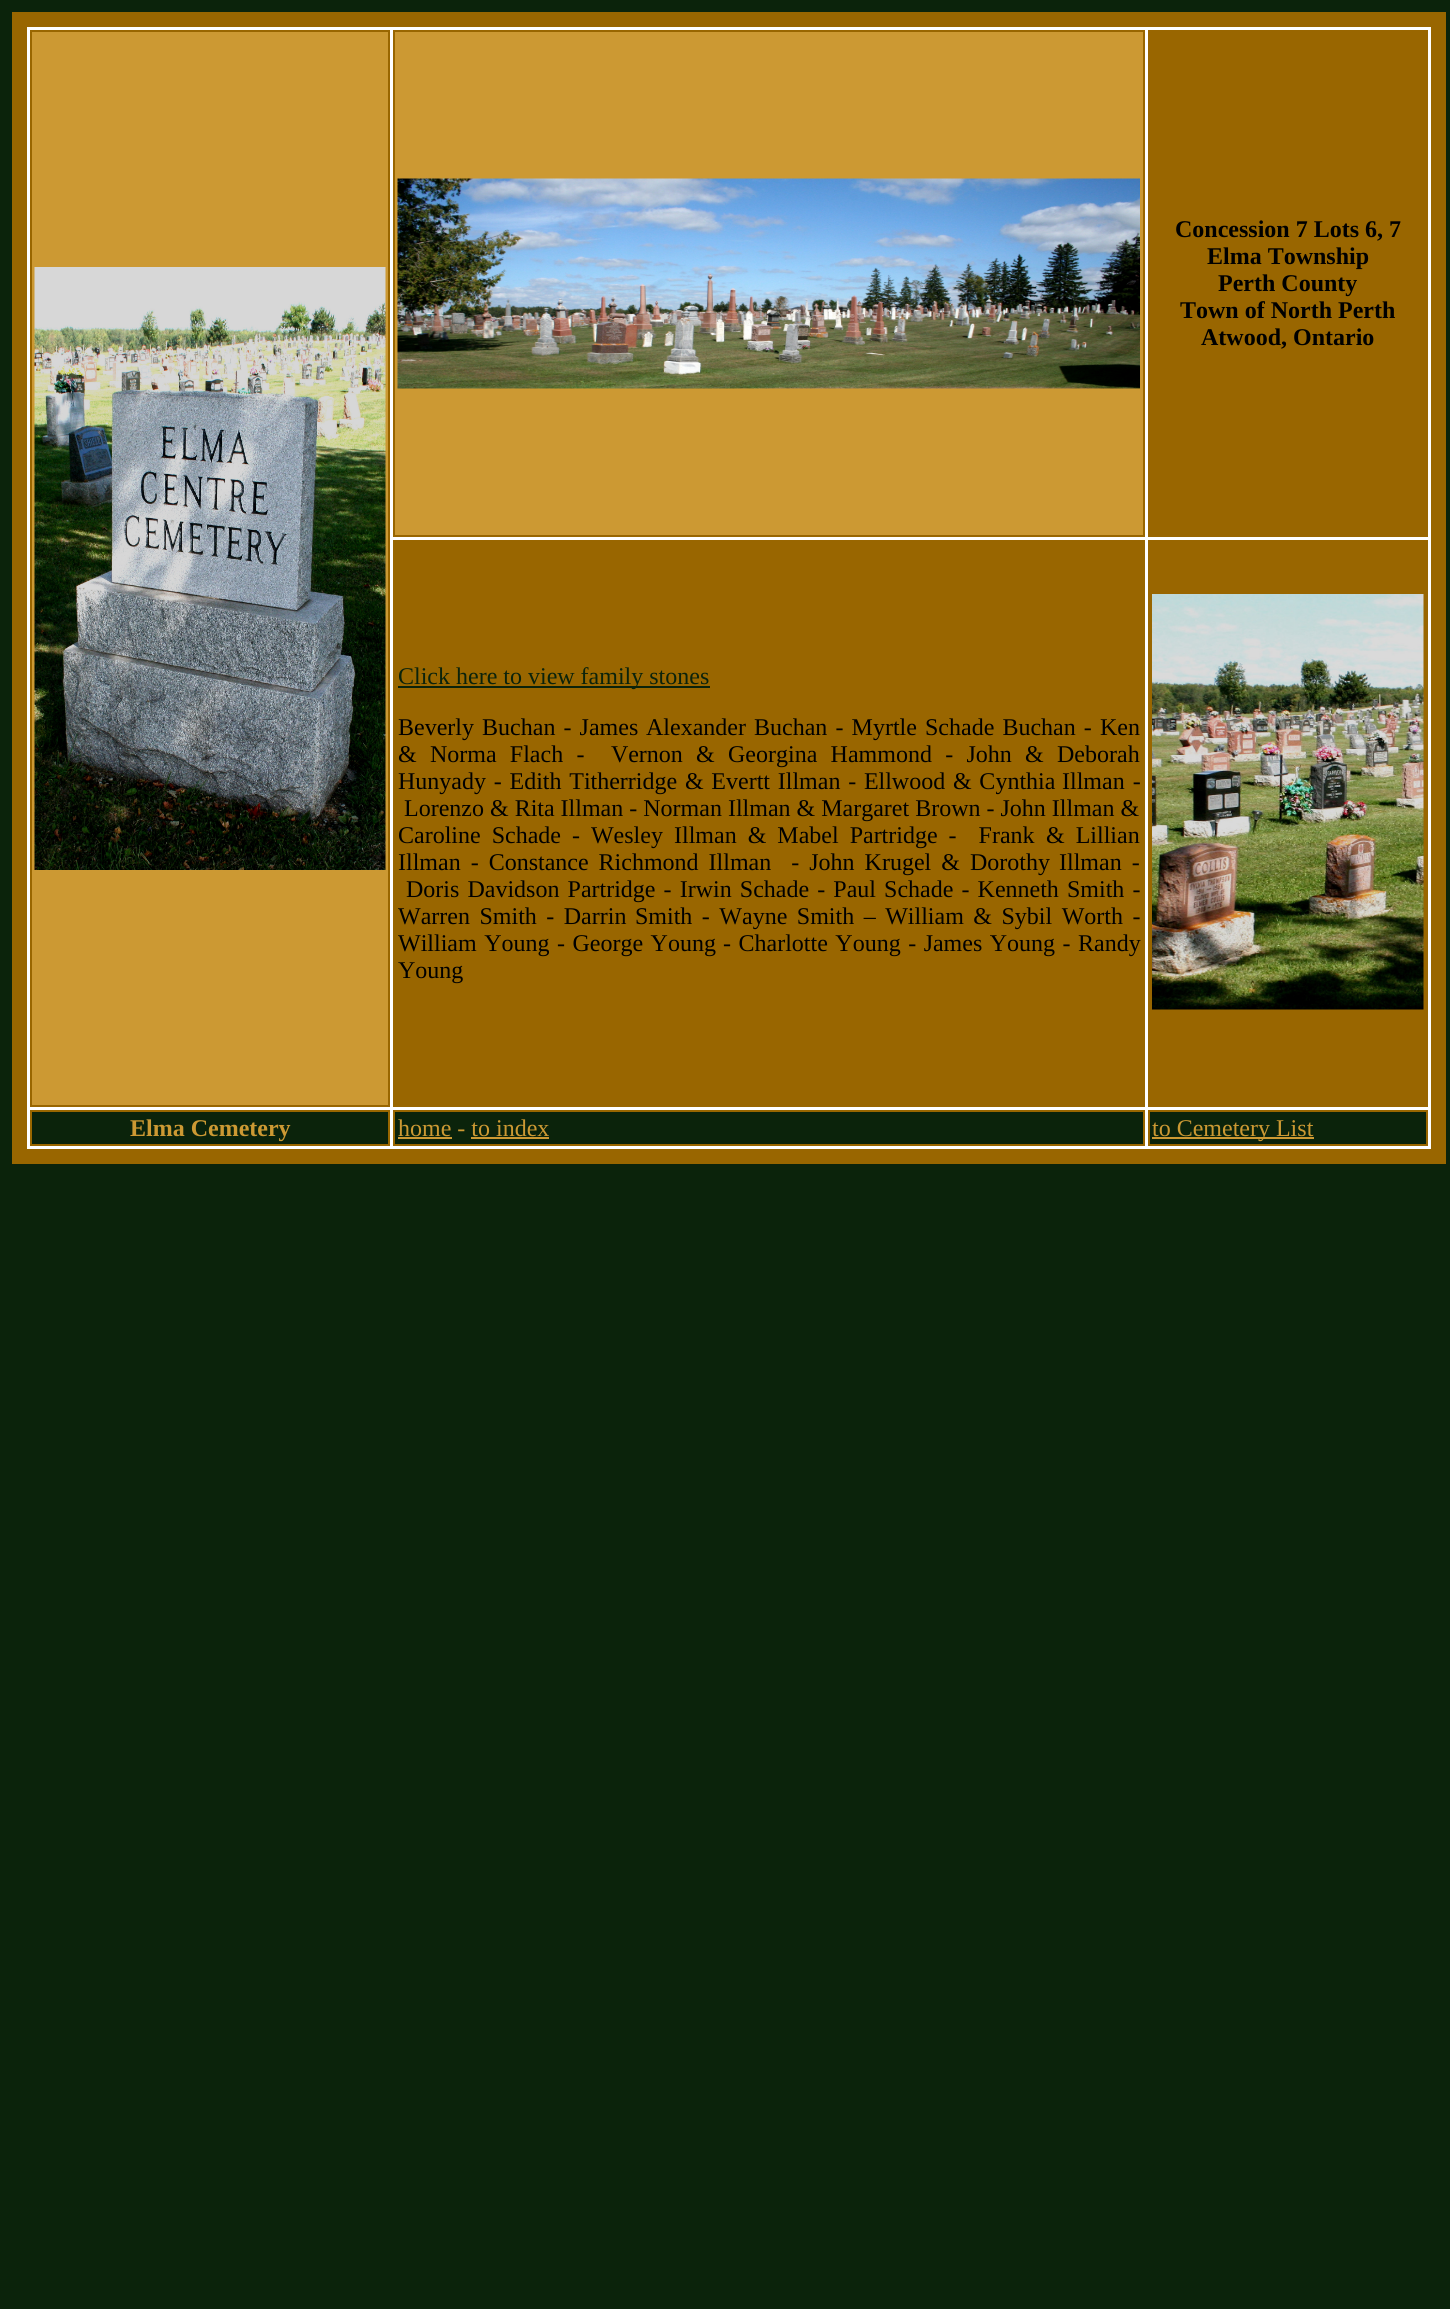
#include <cairo.h>
#include <math.h>
#include <stddef.h>

static cairo_t *ctx;

static void use_color(int r, int g, int b) {
    cairo_set_source_rgb(ctx, r / 255.0, g / 255.0, b / 255.0);
}

static void spaced_text(double x, double y, const char *s, double letter, double word) {
    cairo_move_to(ctx, x, y);
    while (*s) {
        char ch[5] = {0};
        int n = 0;
        do ch[n++] = *s++; while ((*s & 0xC0) == 0x80);
        cairo_show_text(ctx, ch);
        cairo_rel_move_to(ctx, letter + word * (*ch == ' '), 0);
    }
}

static void picture(const char *path, double x, double y, double w, double h) {
    cairo_surface_t *image = cairo_image_surface_create_from_png(path);
    cairo_save(ctx);
    cairo_set_source_surface(ctx, image, x, y);
    cairo_rectangle(ctx, x, y, w, h);
    cairo_fill(ctx);
    cairo_restore(ctx);
    cairo_surface_destroy(image);
}

int main(void) {
    cairo_surface_t *surface = cairo_image_surface_create(CAIRO_FORMAT_RGB24, 1450, 2309);
    ctx = cairo_create(surface);
    cairo_font_options_t *options = cairo_font_options_create();
    cairo_font_options_set_hint_metrics(options, CAIRO_HINT_METRICS_OFF);
    cairo_font_options_set_hint_style(options, CAIRO_HINT_STYLE_NONE);
    cairo_set_font_options(ctx, options);
    cairo_set_miter_limit(ctx, 4);
    use_color(11, 35, 11);
    cairo_paint(ctx);
    use_color(255, 255, 255);
    cairo_rectangle(ctx, 19.5, 19.5, 1419, 1137);
    cairo_fill_preserve(ctx);
    use_color(153, 102, 0);
    cairo_set_line_width(ctx, 15);
    cairo_stroke(ctx);
    use_color(204, 153, 51);
    cairo_rectangle(ctx, 31, 31, 358, 1075);
    cairo_fill_preserve(ctx);
    use_color(153, 102, 0);
    cairo_set_line_width(ctx, 2);
    cairo_stroke(ctx);
    picture("img1.png", 34, 267, 352, 603);
    use_color(204, 153, 51);
    cairo_rectangle(ctx, 394, 31, 750, 505);
    cairo_fill_preserve(ctx);
    use_color(153, 102, 0);
    cairo_stroke(ctx);
    picture("img2.png", 397, 178, 743, 211);
    cairo_rectangle(ctx, 1148, 30, 280, 507);
    cairo_fill(ctx);
    cairo_select_font_face(ctx, "Liberation Serif", CAIRO_FONT_SLANT_NORMAL, CAIRO_FONT_WEIGHT_BOLD);
    cairo_set_font_size(ctx, 24);
    use_color(0, 0, 0);
    cairo_move_to(ctx, 1175, 237);
    cairo_show_text(ctx, "Concession 7 Lots 6, 7");
    cairo_move_to(ctx, 1207, 264);
    cairo_show_text(ctx, "Elma Township");
    cairo_move_to(ctx, 1218, 291);
    cairo_show_text(ctx, "Perth County");
    cairo_move_to(ctx, 1180, 318);
    cairo_show_text(ctx, "Town of North Perth");
    cairo_move_to(ctx, 1201, 345);
    cairo_show_text(ctx, "Atwood, Ontario");
    use_color(153, 102, 0);
    cairo_rectangle(ctx, 393, 540, 752, 567);
    cairo_fill(ctx);
    use_color(11, 35, 11);
    cairo_rectangle(ctx, 398, 686, 312, 2);
    cairo_fill(ctx);
    cairo_select_font_face(ctx, "Liberation Serif", CAIRO_FONT_SLANT_NORMAL, CAIRO_FONT_WEIGHT_NORMAL);
    cairo_move_to(ctx, 398, 684);
    cairo_show_text(ctx, "Click here to view family stones");
    use_color(0, 0, 0);
    spaced_text(398, 735, "Beverly Buchan - James", 0, 2.1);
    spaced_text(646, 735, "Alexander Buchan - Myrtle Schade Buchan - Ken", 0, 2.1);
    spaced_text(398, 762, "& Norma Flach -  Vernon & Georgina Hammond - John &", 0, 7.25);
    cairo_move_to(ctx, 1057, 762);
    cairo_show_text(ctx, "Deborah");
    spaced_text(398, 789, "Hunyady - Edith Titherridge & Evertt Illman - Ellwood & Cynthia", 0, 1.75);
    spaced_text(1062, 789, "Illman -", 0, 2);
    cairo_move_to(ctx, 404, 816);
    cairo_show_text(ctx, "Lorenzo & Rita Illman - Norman Illman & Margaret Brown - John Illman &");
    spaced_text(398, 843, "Caroline Schade - Wesley", 0, 5);
    spaced_text(674, 843, "Illman & Mabel Partridge -  Frank", 0, 5);
    spaced_text(1046, 843, "& Lillian", 0, 5);
    spaced_text(398, 870, "Illman - Constance Richmond Illman  - John Krugel & Dorothy", 0, 4);
    spaced_text(1059, 870, "Illman -", 0, 4);
    spaced_text(406, 897, "Doris Davidson Partridge - Irwin Schade - Paul Schade - Kenneth Smith -", 0, 2.1);
    spaced_text(398, 924, "Warren Smith - Darrin", 0, 3.5);
    spaced_text(635, 924, "Smith - Wayne Smith – William & Sybil Worth -", 0, 3.5);
    spaced_text(398, 951, "William Young - George Young", 0, 1.5);
    spaced_text(723, 951, "- Charlotte Young - James Young - Randy", 0, 1.5);
    cairo_move_to(ctx, 398, 978);
    cairo_show_text(ctx, "Young");
    use_color(153, 102, 0);
    cairo_rectangle(ctx, 1148, 540, 280, 567);
    cairo_fill(ctx);
    picture("img3.png", 1152, 594, 272, 416);
    use_color(11, 35, 11);
    cairo_rectangle(ctx, 31, 1111, 358, 34);
    cairo_fill_preserve(ctx);
    use_color(153, 102, 0);
    cairo_stroke(ctx);
    cairo_select_font_face(ctx, "Liberation Serif", CAIRO_FONT_SLANT_NORMAL, CAIRO_FONT_WEIGHT_BOLD);
    use_color(204, 153, 51);
    cairo_move_to(ctx, 130, 1136);
    cairo_show_text(ctx, "Elma Cemetery");
    use_color(11, 35, 11);
    cairo_rectangle(ctx, 394, 1111, 750, 34);
    cairo_fill_preserve(ctx);
    use_color(153, 102, 0);
    cairo_stroke(ctx);
    cairo_select_font_face(ctx, "Liberation Serif", CAIRO_FONT_SLANT_NORMAL, CAIRO_FONT_WEIGHT_NORMAL);
    use_color(204, 153, 51);
    cairo_move_to(ctx, 398, 1136);
    cairo_show_text(ctx, "home - to index");
    cairo_rectangle(ctx, 398, 1137, 54, 2);
    cairo_fill(ctx);
    cairo_rectangle(ctx, 471, 1137, 78, 2);
    cairo_fill(ctx);
    use_color(11, 35, 11);
    cairo_rectangle(ctx, 1149, 1111, 278, 34);
    cairo_fill_preserve(ctx);
    use_color(153, 102, 0);
    cairo_stroke(ctx);
    use_color(204, 153, 51);
    cairo_rectangle(ctx, 1152, 1137, 162, 2);
    cairo_fill(ctx);
    cairo_move_to(ctx, 1152, 1136);
    cairo_show_text(ctx, "to Cemetery List");
    cairo_surface_write_to_png(surface, "result.png");
    cairo_font_options_destroy(options);
    cairo_destroy(ctx);
    cairo_surface_destroy(surface);
    return 0;
}
